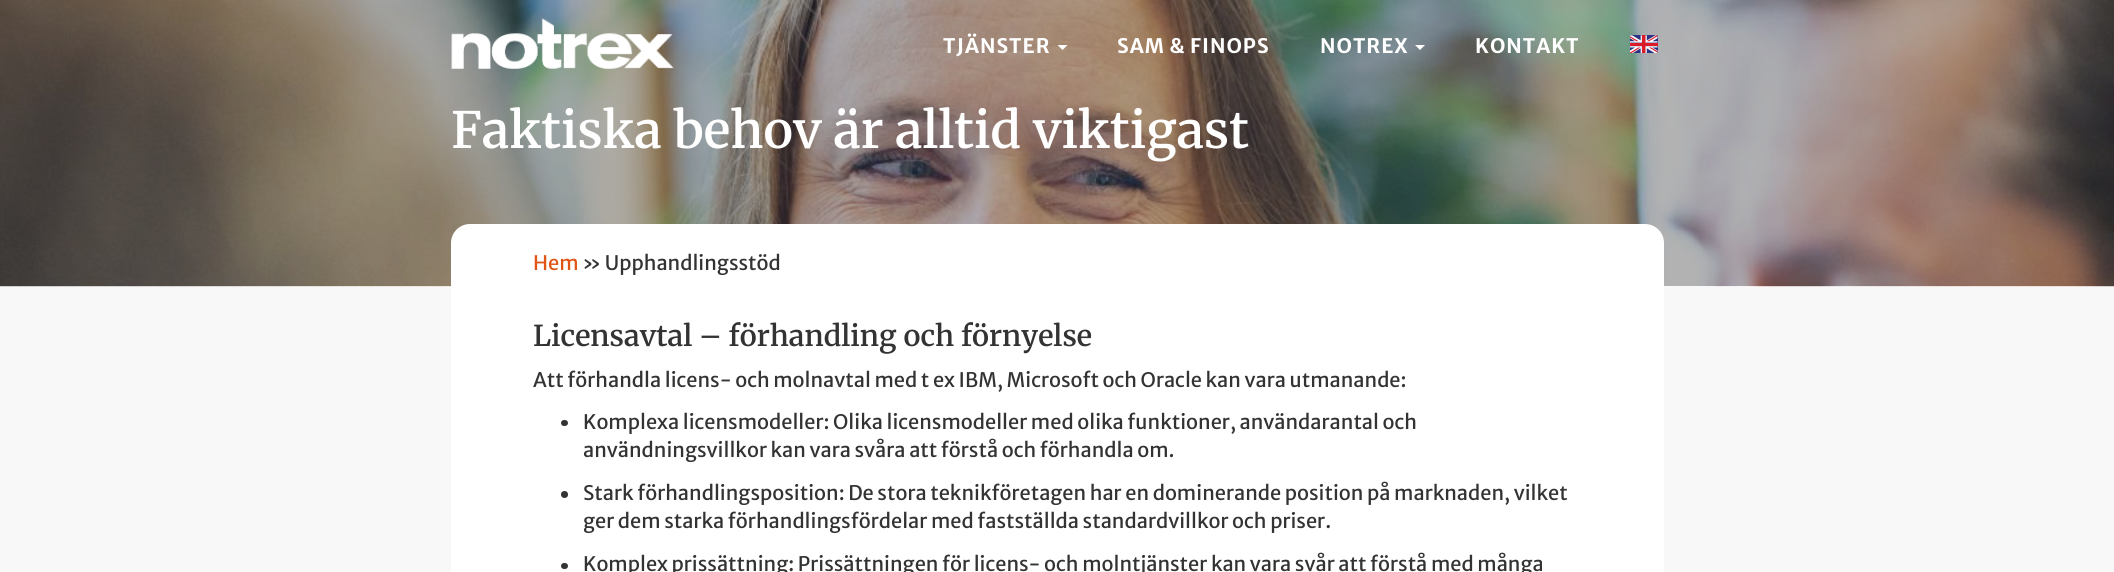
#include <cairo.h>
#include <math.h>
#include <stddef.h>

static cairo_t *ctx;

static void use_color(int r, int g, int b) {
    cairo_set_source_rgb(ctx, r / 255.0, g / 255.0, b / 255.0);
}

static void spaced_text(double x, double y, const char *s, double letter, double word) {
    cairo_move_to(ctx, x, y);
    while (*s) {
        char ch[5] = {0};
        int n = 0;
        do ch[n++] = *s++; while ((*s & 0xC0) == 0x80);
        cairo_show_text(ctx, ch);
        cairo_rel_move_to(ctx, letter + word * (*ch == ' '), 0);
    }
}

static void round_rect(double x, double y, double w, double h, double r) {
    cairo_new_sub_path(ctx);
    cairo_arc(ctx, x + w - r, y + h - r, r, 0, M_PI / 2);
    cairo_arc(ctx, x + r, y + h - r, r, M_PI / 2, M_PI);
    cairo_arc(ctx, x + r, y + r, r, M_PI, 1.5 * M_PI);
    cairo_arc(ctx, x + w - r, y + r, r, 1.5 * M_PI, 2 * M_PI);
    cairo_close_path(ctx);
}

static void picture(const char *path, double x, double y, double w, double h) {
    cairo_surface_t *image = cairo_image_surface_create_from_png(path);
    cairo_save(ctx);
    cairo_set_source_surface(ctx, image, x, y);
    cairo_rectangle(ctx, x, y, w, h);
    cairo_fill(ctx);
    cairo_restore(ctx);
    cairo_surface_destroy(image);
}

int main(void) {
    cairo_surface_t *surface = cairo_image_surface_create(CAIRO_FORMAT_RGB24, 2114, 572);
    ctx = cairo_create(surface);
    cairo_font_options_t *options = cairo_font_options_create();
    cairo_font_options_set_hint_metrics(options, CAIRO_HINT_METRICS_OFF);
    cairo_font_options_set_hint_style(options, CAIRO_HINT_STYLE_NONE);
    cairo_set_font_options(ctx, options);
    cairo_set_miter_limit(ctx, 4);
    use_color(248, 248, 248);
    cairo_paint(ctx);
    picture("img3.png", 0, 0, 2114, 287);
    picture("img1.png", 451, 18, 223, 51);
    cairo_select_font_face(ctx, "Merriweather Sans", CAIRO_FONT_SLANT_NORMAL, CAIRO_FONT_WEIGHT_BOLD);
    cairo_set_font_size(ctx, 20);
    use_color(255, 255, 255);
    spaced_text(943, 53, "TJÄNSTER", 1, 0);
    cairo_new_path(ctx);
    cairo_move_to(ctx, 1057.5, 45);
    cairo_line_to(ctx, 1067.5, 45);
    cairo_line_to(ctx, 1062.5, 50);
    cairo_close_path(ctx);
    cairo_fill(ctx);
    spaced_text(1117, 53, "SAM & FINOPS", 1, 0);
    spaced_text(1320, 53, "NOTREX", 1, 0);
    cairo_new_path(ctx);
    cairo_move_to(ctx, 1415, 45);
    cairo_line_to(ctx, 1425, 45);
    cairo_line_to(ctx, 1420, 50);
    cairo_close_path(ctx);
    cairo_fill(ctx);
    spaced_text(1475, 53, "KONTAKT", 1, 0);
    picture("img2.png", 1630, 35, 28, 18);
    cairo_select_font_face(ctx, "Merriweather SemiBold", CAIRO_FONT_SLANT_NORMAL, CAIRO_FONT_WEIGHT_NORMAL);
    cairo_set_font_size(ctx, 50);
    cairo_move_to(ctx, 451, 148);
    cairo_show_text(ctx, "Faktiska behov är alltid viktigast");
    round_rect(451, 224, 1213, 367, 19);
    cairo_fill(ctx);
    cairo_select_font_face(ctx, "Merriweather Sans", CAIRO_FONT_SLANT_NORMAL, CAIRO_FONT_WEIGHT_NORMAL);
    cairo_set_font_size(ctx, 20);
    use_color(224, 85, 22);
    cairo_move_to(ctx, 533, 270);
    cairo_show_text(ctx, "Hem");
    use_color(51, 51, 51);
    cairo_move_to(ctx, 582, 270);
    cairo_show_text(ctx, "» Upphandlingsstöd");
    cairo_select_font_face(ctx, "Merriweather SemiBold", CAIRO_FONT_SLANT_NORMAL, CAIRO_FONT_WEIGHT_NORMAL);
    cairo_set_font_size(ctx, 28.75);
    cairo_move_to(ctx, 533, 346);
    cairo_show_text(ctx, "Licensavtal – förhandling och förnyelse");
    cairo_select_font_face(ctx, "Merriweather Sans", CAIRO_FONT_SLANT_NORMAL, CAIRO_FONT_WEIGHT_NORMAL);
    cairo_set_font_size(ctx, 20);
    cairo_move_to(ctx, 533, 387);
    cairo_show_text(ctx, "Att förhandla licens- och molnavtal med t ex IBM, Microsoft och Oracle kan vara utmanande:");
    round_rect(561, 420, 7, 6, 3);
    cairo_fill(ctx);
    cairo_move_to(ctx, 583, 429);
    cairo_show_text(ctx, "Komplexa licensmodeller: Olika licensmodeller med olika funktioner, användarantal och");
    cairo_move_to(ctx, 583, 457);
    cairo_show_text(ctx, "användningsvillkor kan vara svåra att förstå och förhandla om.");
    cairo_new_path(ctx);
    cairo_arc(ctx, 564.5, 494.5, 3.5, 0, 2 * M_PI);
    cairo_fill(ctx);
    cairo_move_to(ctx, 583, 500);
    cairo_show_text(ctx, "Stark förhandlingsposition: De stora teknikföretagen har en dominerande position på marknaden, vilket");
    cairo_move_to(ctx, 583, 528);
    cairo_show_text(ctx, "ger dem starka förhandlingsfördelar med fastställda standardvillkor och priser.");
    round_rect(561, 563, 7, 6, 3);
    cairo_fill(ctx);
    cairo_move_to(ctx, 583, 571);
    cairo_show_text(ctx, "Komplex prissättning: Prissättningen för licens- och molntjänster kan vara svår att förstå med många");
    cairo_surface_write_to_png(surface, "result.png");
    cairo_font_options_destroy(options);
    cairo_destroy(ctx);
    cairo_surface_destroy(surface);
    return 0;
}
